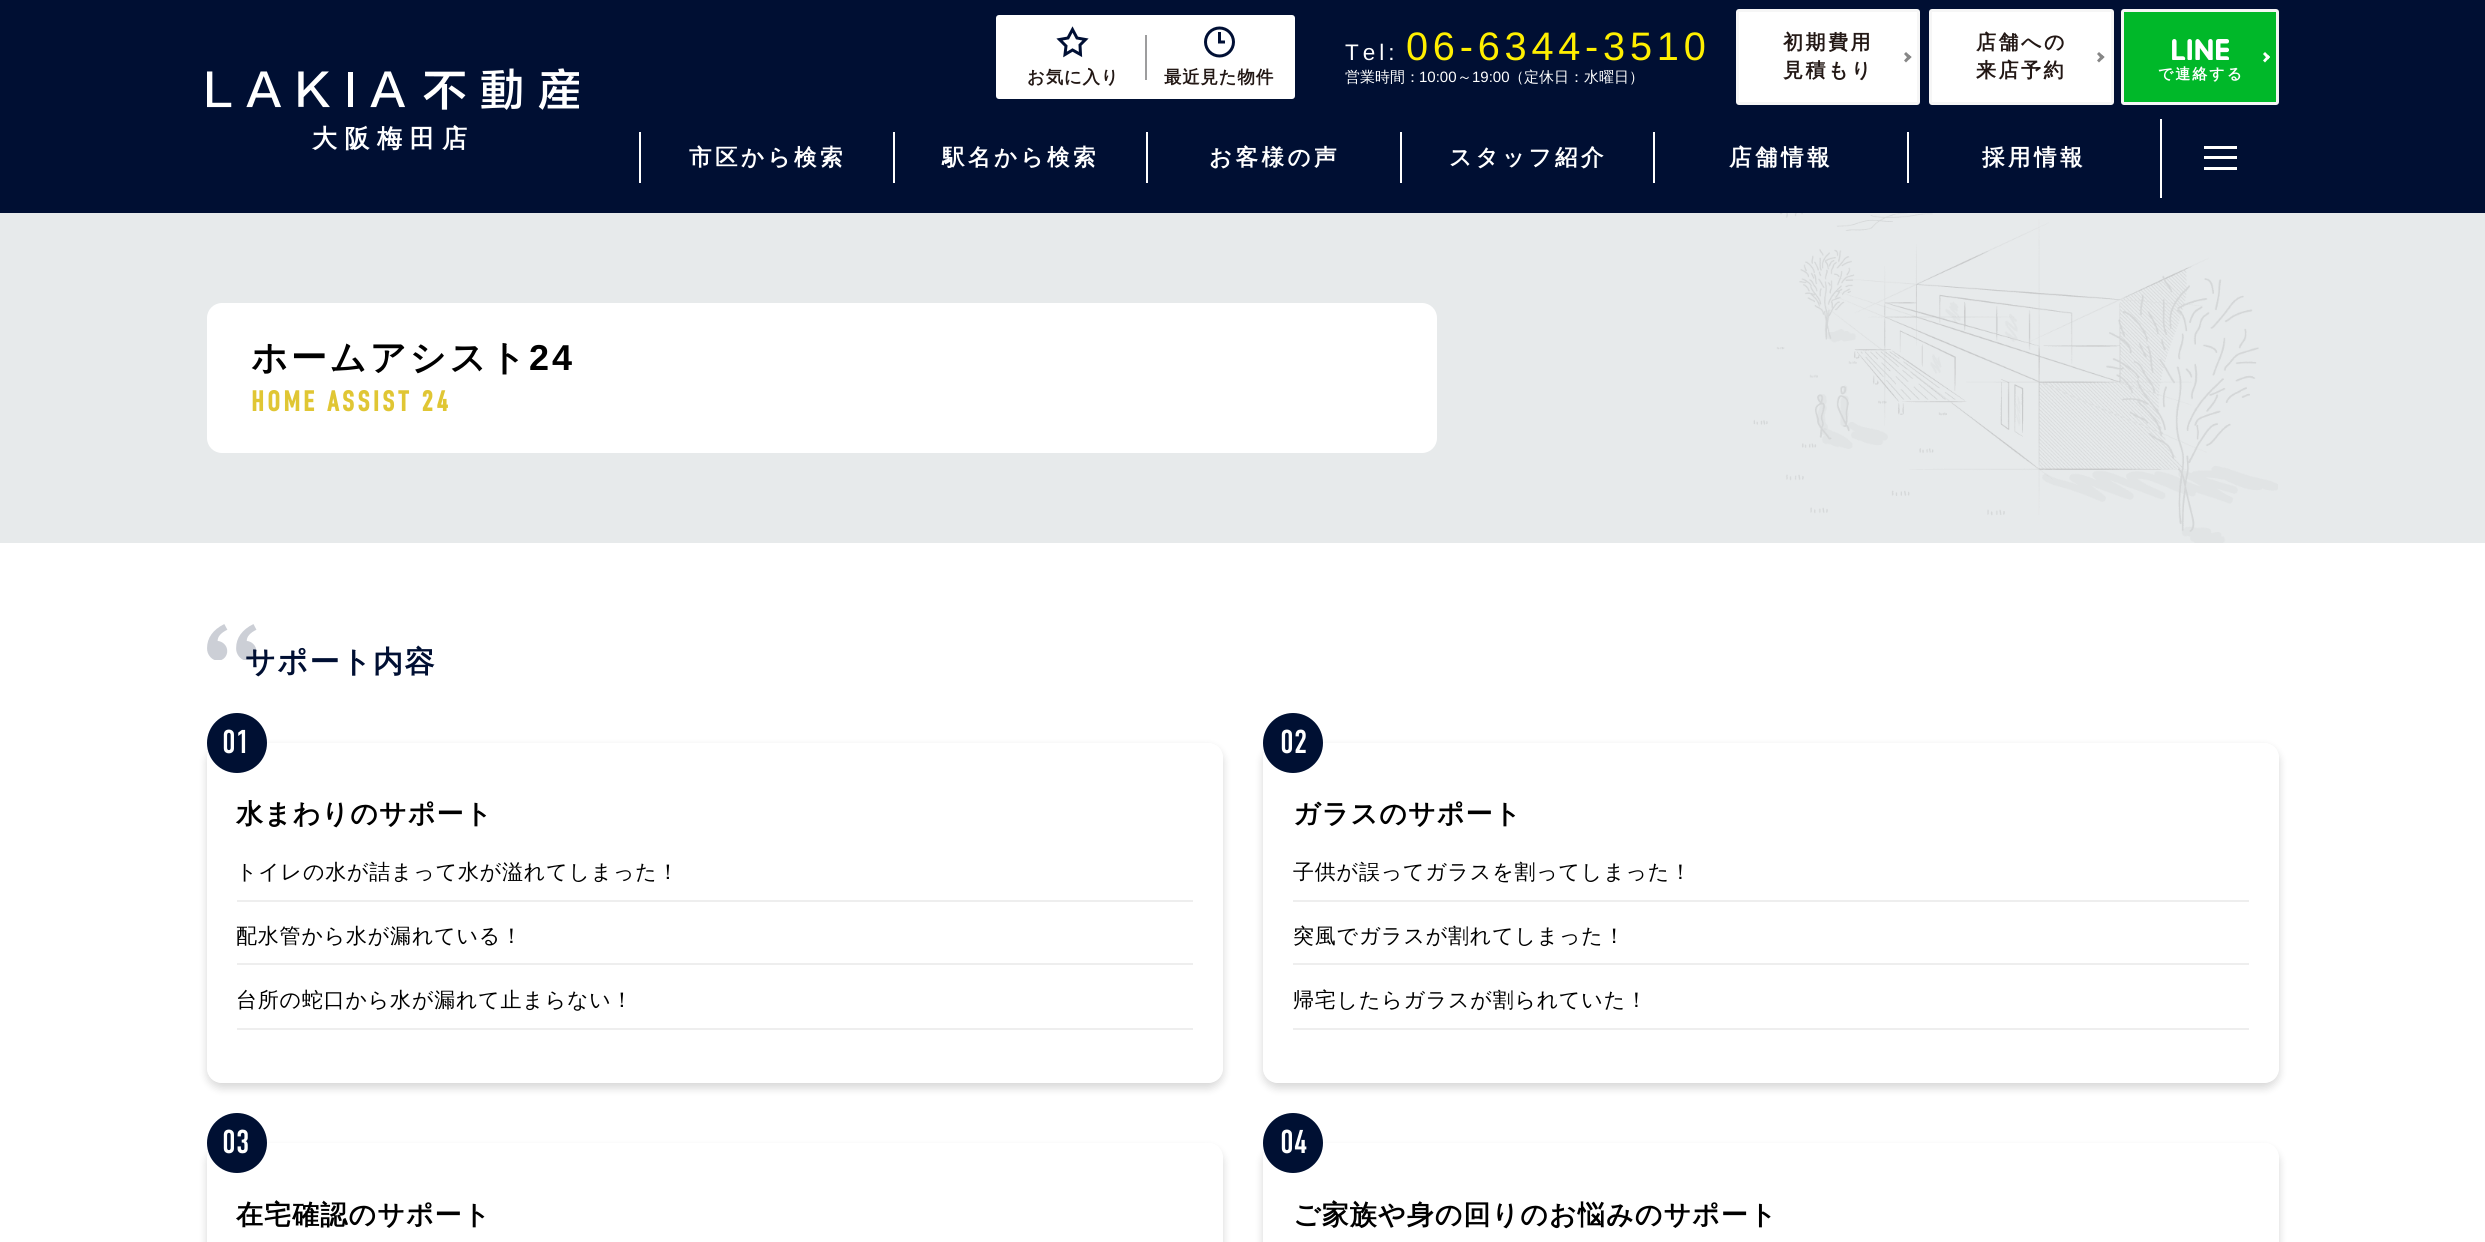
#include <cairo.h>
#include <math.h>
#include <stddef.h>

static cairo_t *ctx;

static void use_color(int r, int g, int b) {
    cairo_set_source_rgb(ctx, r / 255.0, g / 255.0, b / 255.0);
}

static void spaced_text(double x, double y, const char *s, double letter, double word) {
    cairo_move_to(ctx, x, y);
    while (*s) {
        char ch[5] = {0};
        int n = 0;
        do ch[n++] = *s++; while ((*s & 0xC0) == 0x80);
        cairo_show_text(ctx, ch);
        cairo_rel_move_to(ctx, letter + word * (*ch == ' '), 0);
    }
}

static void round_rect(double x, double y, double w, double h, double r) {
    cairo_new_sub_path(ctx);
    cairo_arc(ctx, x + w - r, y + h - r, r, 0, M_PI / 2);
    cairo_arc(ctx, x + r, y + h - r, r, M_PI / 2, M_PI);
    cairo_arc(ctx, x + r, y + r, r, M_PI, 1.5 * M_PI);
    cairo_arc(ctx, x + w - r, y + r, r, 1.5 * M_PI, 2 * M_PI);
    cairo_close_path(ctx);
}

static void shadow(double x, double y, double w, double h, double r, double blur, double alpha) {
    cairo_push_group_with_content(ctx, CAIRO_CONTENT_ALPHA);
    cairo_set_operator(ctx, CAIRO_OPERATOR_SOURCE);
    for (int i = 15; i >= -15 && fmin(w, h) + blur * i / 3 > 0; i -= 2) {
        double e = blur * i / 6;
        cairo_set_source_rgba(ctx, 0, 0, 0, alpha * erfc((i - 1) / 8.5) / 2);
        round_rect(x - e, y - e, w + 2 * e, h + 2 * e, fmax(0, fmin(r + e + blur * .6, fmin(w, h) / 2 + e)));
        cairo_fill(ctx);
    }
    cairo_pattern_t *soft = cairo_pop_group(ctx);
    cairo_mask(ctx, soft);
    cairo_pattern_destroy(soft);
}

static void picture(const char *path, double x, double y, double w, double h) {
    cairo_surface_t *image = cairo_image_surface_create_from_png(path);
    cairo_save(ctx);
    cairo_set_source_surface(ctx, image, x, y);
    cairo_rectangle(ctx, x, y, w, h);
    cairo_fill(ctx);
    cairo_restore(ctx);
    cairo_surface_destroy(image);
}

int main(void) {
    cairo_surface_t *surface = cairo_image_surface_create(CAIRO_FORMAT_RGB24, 2485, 1242);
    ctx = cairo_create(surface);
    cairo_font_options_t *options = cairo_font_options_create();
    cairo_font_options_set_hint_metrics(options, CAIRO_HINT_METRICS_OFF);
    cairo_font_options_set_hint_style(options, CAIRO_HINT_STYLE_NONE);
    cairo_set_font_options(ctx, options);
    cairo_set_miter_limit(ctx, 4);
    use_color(255, 255, 255);
    cairo_paint(ctx);
    use_color(0, 15, 51);
    cairo_rectangle(ctx, 0, 0, 2485, 213);
    cairo_fill(ctx);
    use_color(255, 255, 255);
    round_rect(997.5, 16.5, 296, 81, 1.5);
    cairo_fill_preserve(ctx);
    cairo_set_line_width(ctx, 3);
    cairo_stroke(ctx);
    cairo_new_path(ctx);
    cairo_move_to(ctx, 1059.5, 39.5);
    cairo_line_to(ctx, 1068, 38);
    cairo_line_to(ctx, 1072.5, 29.5);
    cairo_line_to(ctx, 1077, 38);
    cairo_line_to(ctx, 1085.5, 39.5);
    cairo_line_to(ctx, 1080, 45);
    cairo_line_to(ctx, 1080.5, 54.5);
    cairo_line_to(ctx, 1072.5, 50);
    cairo_line_to(ctx, 1065, 54.5);
    cairo_line_to(ctx, 1066, 46);
    cairo_close_path(ctx);
    use_color(0, 15, 52);
    cairo_stroke(ctx);
    cairo_select_font_face(ctx, "WenQuanYi Zen Hei", CAIRO_FONT_SLANT_NORMAL, CAIRO_FONT_WEIGHT_BOLD);
    cairo_set_font_size(ctx, 17.5);
    use_color(35, 24, 21);
    spaced_text(1027, 83, "お気に入り", 0.75, 0);
    use_color(157, 157, 158);
    cairo_rectangle(ctx, 1145, 35, 2, 45);
    cairo_fill(ctx);
    cairo_arc(ctx, 1219.5, 42, 14, 0, 2 * M_PI);
    use_color(0, 15, 52);
    cairo_stroke(ctx);
    cairo_new_path(ctx);
    cairo_move_to(ctx, 1219.5, 32);
    cairo_line_to(ctx, 1219.5, 42);
    cairo_line_to(ctx, 1225, 42);
    cairo_stroke(ctx);
    use_color(35, 24, 21);
    spaced_text(1164, 83, "最近見た物件", 0.75, 0);
    cairo_select_font_face(ctx, "Liberation Sans", CAIRO_FONT_SLANT_NORMAL, CAIRO_FONT_WEIGHT_NORMAL);
    cairo_set_font_size(ctx, 22.5);
    use_color(255, 255, 255);
    spaced_text(1345, 60, "Tel:", 4, 0);
    cairo_set_font_size(ctx, 39.75);
    use_color(255, 239, 0);
    spaced_text(1406, 60, "06-6344-3510", 4.75, 0);
    cairo_select_font_face(ctx, "WenQuanYi Zen Hei Medium", CAIRO_FONT_SLANT_NORMAL, CAIRO_FONT_WEIGHT_NORMAL);
    cairo_set_font_size(ctx, 15);
    use_color(255, 255, 255);
    cairo_move_to(ctx, 1345, 82);
    cairo_show_text(ctx, "営業時間：");
    cairo_select_font_face(ctx, "Liberation Sans", CAIRO_FONT_SLANT_NORMAL, CAIRO_FONT_WEIGHT_NORMAL);
    cairo_move_to(ctx, 1419, 82);
    cairo_show_text(ctx, "10:00");
    cairo_select_font_face(ctx, "WenQuanYi Zen Hei Medium", CAIRO_FONT_SLANT_NORMAL, CAIRO_FONT_WEIGHT_NORMAL);
    cairo_move_to(ctx, 1457, 82);
    cairo_show_text(ctx, "～");
    cairo_select_font_face(ctx, "Liberation Sans", CAIRO_FONT_SLANT_NORMAL, CAIRO_FONT_WEIGHT_NORMAL);
    cairo_move_to(ctx, 1472, 82);
    cairo_show_text(ctx, "19:00");
    cairo_select_font_face(ctx, "WenQuanYi Zen Hei Medium", CAIRO_FONT_SLANT_NORMAL, CAIRO_FONT_WEIGHT_NORMAL);
    cairo_move_to(ctx, 1509, 82);
    cairo_show_text(ctx, "（定休日：水曜日）");
    round_rect(1737.5, 10.5, 181, 93, 1.5);
    cairo_fill_preserve(ctx);
    use_color(246, 246, 246);
    cairo_stroke(ctx);
    cairo_select_font_face(ctx, "WenQuanYi Zen Hei", CAIRO_FONT_SLANT_NORMAL, CAIRO_FONT_WEIGHT_BOLD);
    cairo_set_font_size(ctx, 20);
    use_color(35, 24, 21);
    spaced_text(1783, 49, "初期費用", 2.5, 0);
    use_color(135, 135, 135);
    cairo_new_path(ctx);
    cairo_move_to(ctx, 1906, 52);
    cairo_line_to(ctx, 1911.5, 57);
    cairo_line_to(ctx, 1909, 59.5);
    cairo_line_to(ctx, 1904, 54);
    cairo_close_path(ctx);
    cairo_fill(ctx);
    cairo_new_path(ctx);
    cairo_move_to(ctx, 1909, 55);
    cairo_line_to(ctx, 1911.5, 57);
    cairo_line_to(ctx, 1906, 62.5);
    cairo_line_to(ctx, 1904, 60.5);
    cairo_close_path(ctx);
    cairo_fill(ctx);
    use_color(35, 24, 21);
    spaced_text(1783, 77, "見積もり", 2.5, 0);
    use_color(255, 255, 255);
    round_rect(1930.5, 10.5, 182, 93, 1.5);
    cairo_fill_preserve(ctx);
    use_color(246, 246, 246);
    cairo_stroke(ctx);
    use_color(35, 24, 21);
    spaced_text(1976, 49, "店舗への", 2.5, 0);
    use_color(135, 135, 135);
    cairo_new_path(ctx);
    cairo_move_to(ctx, 2099, 52);
    cairo_line_to(ctx, 2104.5, 57);
    cairo_line_to(ctx, 2102, 59.5);
    cairo_line_to(ctx, 2097, 54);
    cairo_close_path(ctx);
    cairo_fill(ctx);
    cairo_new_path(ctx);
    cairo_move_to(ctx, 2102, 55);
    cairo_line_to(ctx, 2104.5, 57);
    cairo_line_to(ctx, 2099, 62.5);
    cairo_line_to(ctx, 2097, 60.5);
    cairo_close_path(ctx);
    cairo_fill(ctx);
    use_color(35, 24, 21);
    spaced_text(1976, 77, "来店予約", 2.5, 0);
    use_color(0, 184, 41);
    round_rect(2122.5, 10.5, 155, 93, 1.5);
    cairo_fill_preserve(ctx);
    use_color(246, 246, 246);
    cairo_stroke(ctx);
    picture("img1.png", 2172, 39, 57, 21);
    use_color(255, 255, 255);
    cairo_new_path(ctx);
    cairo_move_to(ctx, 2265, 52);
    cairo_line_to(ctx, 2270, 57);
    cairo_line_to(ctx, 2268, 59.5);
    cairo_line_to(ctx, 2263, 54);
    cairo_close_path(ctx);
    cairo_fill(ctx);
    cairo_new_path(ctx);
    cairo_move_to(ctx, 2268, 55);
    cairo_line_to(ctx, 2270, 57);
    cairo_line_to(ctx, 2265, 62.5);
    cairo_line_to(ctx, 2263, 60.5);
    cairo_close_path(ctx);
    cairo_fill(ctx);
    cairo_set_font_size(ctx, 15);
    spaced_text(2158, 79, "で連絡する", 2, 0);
    picture("img2.png", 207, 68, 372, 42);
    cairo_set_font_size(ctx, 25);
    spaced_text(312, 147, "大阪梅田店", 7.5, 0);
    cairo_rectangle(ctx, 639, 132, 2, 51);
    cairo_fill(ctx);
    cairo_set_font_size(ctx, 22.5);
    spaced_text(689, 165, "市区から検索", 3.5, 0);
    cairo_rectangle(ctx, 893, 132, 2, 51);
    cairo_fill(ctx);
    spaced_text(942, 165, "駅名から検索", 3.5, 0);
    cairo_rectangle(ctx, 1146, 132, 2, 51);
    cairo_fill(ctx);
    spaced_text(1209, 165, "お客様の声", 3.5, 0);
    cairo_rectangle(ctx, 1400, 132, 2, 51);
    cairo_fill(ctx);
    spaced_text(1449, 165, "スタッフ紹介", 3.5, 0);
    cairo_rectangle(ctx, 1653, 132, 2, 51);
    cairo_fill(ctx);
    spaced_text(1729, 165, "店舗情報", 3.5, 0);
    cairo_rectangle(ctx, 1907, 132, 2, 51);
    cairo_fill(ctx);
    spaced_text(1982, 165, "採用情報", 3.5, 0);
    cairo_rectangle(ctx, 2160, 119, 2, 79);
    cairo_fill(ctx);
    cairo_rectangle(ctx, 2204, 146, 33, 3);
    cairo_fill(ctx);
    cairo_rectangle(ctx, 2204, 156, 33, 3);
    cairo_fill(ctx);
    cairo_rectangle(ctx, 2204, 167, 33, 3);
    cairo_fill(ctx);
    use_color(231, 234, 235);
    cairo_rectangle(ctx, 0, 213, 2485, 330);
    cairo_fill(ctx);
    picture("img3.png", 1753, 213, 525, 330);
    use_color(255, 255, 255);
    round_rect(207, 303, 1230, 150, 15);
    cairo_fill(ctx);
    cairo_set_font_size(ctx, 36);
    use_color(0, 0, 0);
    spaced_text(251, 370, "ホームアシスト", 3, 0);
    cairo_select_font_face(ctx, "Liberation Sans", CAIRO_FONT_SLANT_NORMAL, CAIRO_FONT_WEIGHT_BOLD);
    spaced_text(529, 370, "24", 3, 0);
    cairo_select_font_face(ctx, "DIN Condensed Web", CAIRO_FONT_SLANT_NORMAL, CAIRO_FONT_WEIGHT_BOLD);
    cairo_set_font_size(ctx, 28.5);
    use_color(224, 198, 52);
    spaced_text(251, 411, "HOME ASSIST 24", 3, 0);
    cairo_select_font_face(ctx, "WenQuanYi Zen Hei", CAIRO_FONT_SLANT_NORMAL, CAIRO_FONT_WEIGHT_BOLD);
    cairo_set_font_size(ctx, 30);
    use_color(0, 15, 51);
    spaced_text(245, 672, "サポート内容", 1.5, 0);
    picture("img4.png", 207, 624, 50, 36);
    cairo_save(ctx);
    cairo_set_fill_rule(ctx, CAIRO_FILL_RULE_EVEN_ODD);
    cairo_new_path(ctx);
    cairo_move_to(ctx, 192, 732);
    cairo_line_to(ctx, 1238, 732);
    cairo_line_to(ctx, 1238, 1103);
    cairo_line_to(ctx, 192, 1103);
    cairo_close_path(ctx);
    cairo_move_to(ctx, 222, 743);
    cairo_line_to(ctx, 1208, 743);
    cairo_curve_to(ctx, 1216.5, 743, 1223, 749.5, 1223, 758);
    cairo_line_to(ctx, 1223, 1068);
    cairo_curve_to(ctx, 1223, 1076.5, 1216.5, 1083, 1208, 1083);
    cairo_line_to(ctx, 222, 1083);
    cairo_curve_to(ctx, 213.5, 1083, 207, 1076.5, 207, 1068);
    cairo_line_to(ctx, 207, 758);
    cairo_curve_to(ctx, 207, 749.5, 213.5, 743, 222, 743);
    cairo_close_path(ctx);
    cairo_clip(ctx);
    use_color(0, 0, 0);
    shadow(207, 747, 1016, 341, 15, 4.5, 0.16);
    cairo_restore(ctx);
    use_color(0, 16, 51);
    cairo_arc(ctx, 237, 743, 30, 0, 2 * M_PI);
    cairo_fill(ctx);
    cairo_select_font_face(ctx, "DIN Condensed Web", CAIRO_FONT_SLANT_NORMAL, CAIRO_FONT_WEIGHT_NORMAL);
    cairo_set_font_size(ctx, 33);
    use_color(255, 255, 255);
    cairo_move_to(ctx, 222, 753);
    cairo_show_text(ctx, "01");
    cairo_select_font_face(ctx, "WenQuanYi Zen Hei", CAIRO_FONT_SLANT_NORMAL, CAIRO_FONT_WEIGHT_BOLD);
    cairo_set_font_size(ctx, 27);
    use_color(0, 0, 0);
    spaced_text(236, 823, "水まわりのサポート", 1.1, 0);
    use_color(238, 238, 238);
    cairo_rectangle(ctx, 237, 900, 956, 2);
    cairo_fill(ctx);
    cairo_select_font_face(ctx, "WenQuanYi Zen Hei Medium", CAIRO_FONT_SLANT_NORMAL, CAIRO_FONT_WEIGHT_NORMAL);
    cairo_set_font_size(ctx, 21);
    use_color(0, 0, 0);
    spaced_text(236, 879, "トイレの水が詰まって水が溢れてしまった！", 0.8, 0);
    use_color(238, 238, 238);
    cairo_rectangle(ctx, 237, 963, 956, 2);
    cairo_fill(ctx);
    use_color(0, 0, 0);
    spaced_text(236, 943, "配水管から水が漏れている！", 0.8, 0);
    use_color(238, 238, 238);
    cairo_rectangle(ctx, 237, 1028, 956, 2);
    cairo_fill(ctx);
    use_color(0, 0, 0);
    spaced_text(236, 1007, "台所の蛇口から水が漏れて止まらない！", 0.8, 0);
    cairo_save(ctx);
    cairo_set_fill_rule(ctx, CAIRO_FILL_RULE_EVEN_ODD);
    cairo_new_path(ctx);
    cairo_move_to(ctx, 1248, 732);
    cairo_line_to(ctx, 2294, 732);
    cairo_line_to(ctx, 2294, 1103);
    cairo_line_to(ctx, 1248, 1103);
    cairo_close_path(ctx);
    cairo_move_to(ctx, 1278, 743);
    cairo_line_to(ctx, 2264, 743);
    cairo_curve_to(ctx, 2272.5, 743, 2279, 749.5, 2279, 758);
    cairo_line_to(ctx, 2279, 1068);
    cairo_curve_to(ctx, 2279, 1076.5, 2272.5, 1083, 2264, 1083);
    cairo_line_to(ctx, 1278, 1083);
    cairo_curve_to(ctx, 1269.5, 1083, 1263, 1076.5, 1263, 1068);
    cairo_line_to(ctx, 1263, 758);
    cairo_curve_to(ctx, 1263, 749.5, 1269.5, 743, 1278, 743);
    cairo_close_path(ctx);
    cairo_clip(ctx);
    use_color(0, 0, 0);
    shadow(1263, 747, 1016, 341, 15, 4.5, 0.16);
    cairo_restore(ctx);
    use_color(0, 16, 51);
    cairo_arc(ctx, 1293, 743, 30, 0, 2 * M_PI);
    cairo_fill(ctx);
    cairo_select_font_face(ctx, "DIN Condensed Web", CAIRO_FONT_SLANT_NORMAL, CAIRO_FONT_WEIGHT_NORMAL);
    cairo_set_font_size(ctx, 33);
    use_color(255, 255, 255);
    cairo_move_to(ctx, 1280, 753);
    cairo_show_text(ctx, "02");
    cairo_select_font_face(ctx, "WenQuanYi Zen Hei", CAIRO_FONT_SLANT_NORMAL, CAIRO_FONT_WEIGHT_BOLD);
    cairo_set_font_size(ctx, 27);
    use_color(0, 0, 0);
    spaced_text(1293, 823, "ガラスのサポート", 1.1, 0);
    use_color(238, 238, 238);
    cairo_rectangle(ctx, 1293, 900, 956, 2);
    cairo_fill(ctx);
    cairo_select_font_face(ctx, "WenQuanYi Zen Hei Medium", CAIRO_FONT_SLANT_NORMAL, CAIRO_FONT_WEIGHT_NORMAL);
    cairo_set_font_size(ctx, 21);
    use_color(0, 0, 0);
    spaced_text(1293, 879, "子供が誤ってガラスを割ってしまった！", 0.8, 0);
    use_color(238, 238, 238);
    cairo_rectangle(ctx, 1293, 963, 956, 2);
    cairo_fill(ctx);
    use_color(0, 0, 0);
    spaced_text(1293, 943, "突風でガラスが割れてしまった！", 0.8, 0);
    use_color(238, 238, 238);
    cairo_rectangle(ctx, 1293, 1028, 956, 2);
    cairo_fill(ctx);
    use_color(0, 0, 0);
    spaced_text(1293, 1007, "帰宅したらガラスが割られていた！", 0.8, 0);
    cairo_save(ctx);
    cairo_set_fill_rule(ctx, CAIRO_FILL_RULE_EVEN_ODD);
    cairo_new_path(ctx);
    cairo_move_to(ctx, 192, 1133);
    cairo_line_to(ctx, 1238, 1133);
    cairo_line_to(ctx, 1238, 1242);
    cairo_line_to(ctx, 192, 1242);
    cairo_close_path(ctx);
    cairo_move_to(ctx, 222, 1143);
    cairo_line_to(ctx, 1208, 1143);
    cairo_curve_to(ctx, 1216.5, 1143, 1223, 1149.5, 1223, 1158);
    cairo_line_to(ctx, 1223, 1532);
    cairo_curve_to(ctx, 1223, 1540.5, 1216.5, 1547, 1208, 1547);
    cairo_line_to(ctx, 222, 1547);
    cairo_curve_to(ctx, 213.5, 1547, 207, 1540.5, 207, 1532);
    cairo_line_to(ctx, 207, 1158);
    cairo_curve_to(ctx, 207, 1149.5, 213.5, 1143, 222, 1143);
    cairo_close_path(ctx);
    cairo_clip(ctx);
    use_color(0, 0, 0);
    shadow(207, 1148, 1016, 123, 15, 4.5, 0.16);
    cairo_restore(ctx);
    use_color(0, 16, 51);
    cairo_arc(ctx, 237, 1143, 30, 0, 2 * M_PI);
    cairo_fill(ctx);
    cairo_select_font_face(ctx, "DIN Condensed Web", CAIRO_FONT_SLANT_NORMAL, CAIRO_FONT_WEIGHT_NORMAL);
    cairo_set_font_size(ctx, 33);
    use_color(255, 255, 255);
    cairo_move_to(ctx, 222, 1153);
    cairo_show_text(ctx, "03");
    cairo_select_font_face(ctx, "WenQuanYi Zen Hei", CAIRO_FONT_SLANT_NORMAL, CAIRO_FONT_WEIGHT_BOLD);
    cairo_set_font_size(ctx, 27);
    use_color(0, 0, 0);
    spaced_text(236, 1224, "在宅確認のサポート", 1.1, 0);
    cairo_save(ctx);
    cairo_set_fill_rule(ctx, CAIRO_FILL_RULE_EVEN_ODD);
    cairo_new_path(ctx);
    cairo_move_to(ctx, 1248, 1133);
    cairo_line_to(ctx, 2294, 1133);
    cairo_line_to(ctx, 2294, 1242);
    cairo_line_to(ctx, 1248, 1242);
    cairo_close_path(ctx);
    cairo_move_to(ctx, 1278, 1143);
    cairo_line_to(ctx, 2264, 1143);
    cairo_curve_to(ctx, 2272.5, 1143, 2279, 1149.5, 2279, 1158);
    cairo_line_to(ctx, 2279, 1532);
    cairo_curve_to(ctx, 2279, 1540.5, 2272.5, 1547, 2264, 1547);
    cairo_line_to(ctx, 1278, 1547);
    cairo_curve_to(ctx, 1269.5, 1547, 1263, 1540.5, 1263, 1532);
    cairo_line_to(ctx, 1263, 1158);
    cairo_curve_to(ctx, 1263, 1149.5, 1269.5, 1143, 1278, 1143);
    cairo_close_path(ctx);
    cairo_clip(ctx);
    use_color(0, 0, 0);
    shadow(1263, 1148, 1016, 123, 15, 4.5, 0.16);
    cairo_restore(ctx);
    use_color(0, 16, 51);
    cairo_arc(ctx, 1293, 1143, 30, 0, 2 * M_PI);
    cairo_fill(ctx);
    cairo_select_font_face(ctx, "DIN Condensed Web", CAIRO_FONT_SLANT_NORMAL, CAIRO_FONT_WEIGHT_NORMAL);
    cairo_set_font_size(ctx, 33);
    use_color(255, 255, 255);
    cairo_move_to(ctx, 1280, 1153);
    cairo_show_text(ctx, "04");
    cairo_select_font_face(ctx, "WenQuanYi Zen Hei", CAIRO_FONT_SLANT_NORMAL, CAIRO_FONT_WEIGHT_BOLD);
    cairo_set_font_size(ctx, 27);
    use_color(0, 0, 0);
    spaced_text(1293, 1224, "ご家族や身の回りのお悩みのサポート", 1.1, 0);
    cairo_surface_write_to_png(surface, "result.png");
    cairo_font_options_destroy(options);
    cairo_destroy(ctx);
    cairo_surface_destroy(surface);
    return 0;
}
